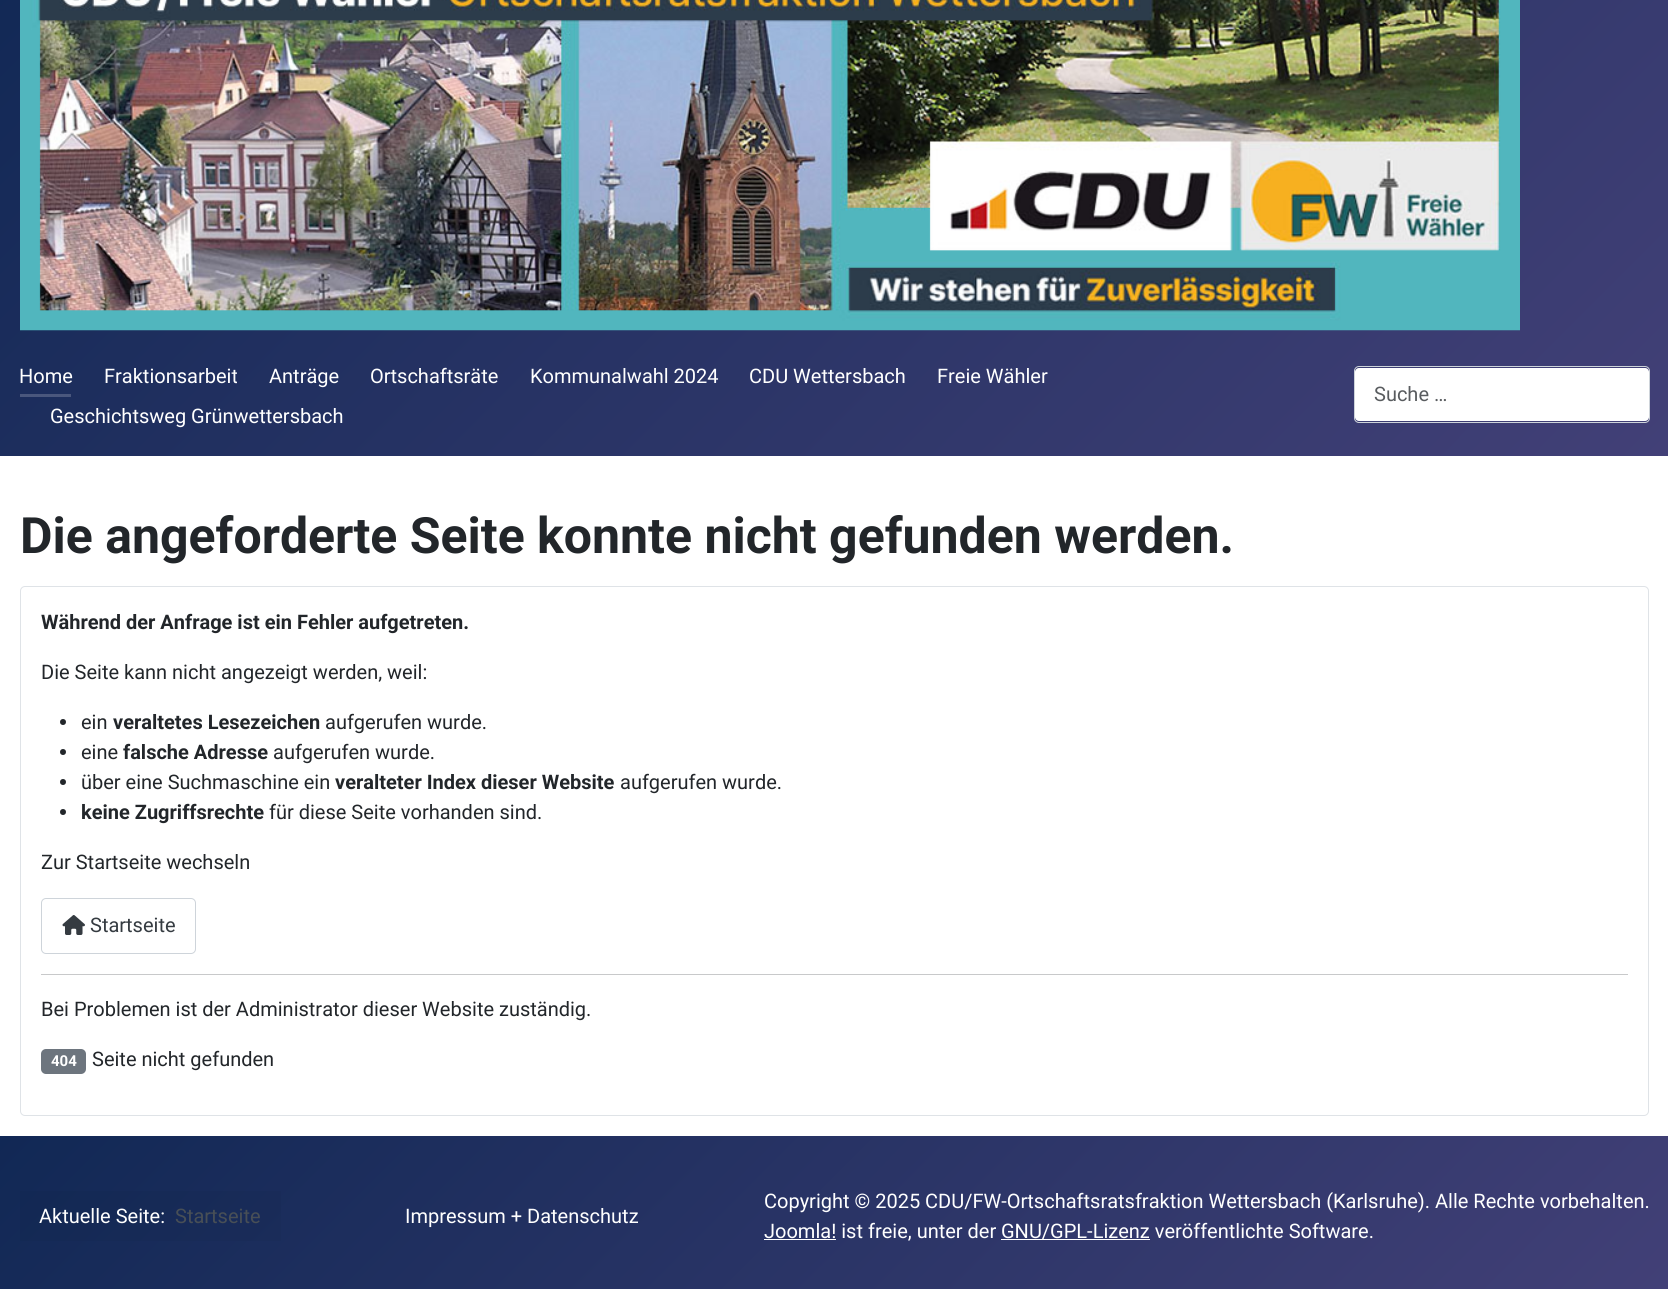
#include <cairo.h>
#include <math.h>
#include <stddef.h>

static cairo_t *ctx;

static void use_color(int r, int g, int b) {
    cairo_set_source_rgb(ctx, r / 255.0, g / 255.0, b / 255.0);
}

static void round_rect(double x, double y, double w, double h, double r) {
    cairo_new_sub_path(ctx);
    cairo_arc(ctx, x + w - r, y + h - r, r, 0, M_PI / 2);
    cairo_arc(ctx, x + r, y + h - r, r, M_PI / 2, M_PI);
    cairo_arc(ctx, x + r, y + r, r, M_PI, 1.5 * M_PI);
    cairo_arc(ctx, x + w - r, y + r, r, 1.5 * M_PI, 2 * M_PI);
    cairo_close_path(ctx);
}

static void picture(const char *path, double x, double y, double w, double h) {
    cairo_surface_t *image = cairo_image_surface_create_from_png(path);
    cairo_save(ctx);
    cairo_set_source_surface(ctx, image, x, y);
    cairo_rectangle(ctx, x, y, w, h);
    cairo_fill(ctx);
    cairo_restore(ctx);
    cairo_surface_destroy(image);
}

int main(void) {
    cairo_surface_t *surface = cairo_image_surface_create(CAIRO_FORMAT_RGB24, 1668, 1289);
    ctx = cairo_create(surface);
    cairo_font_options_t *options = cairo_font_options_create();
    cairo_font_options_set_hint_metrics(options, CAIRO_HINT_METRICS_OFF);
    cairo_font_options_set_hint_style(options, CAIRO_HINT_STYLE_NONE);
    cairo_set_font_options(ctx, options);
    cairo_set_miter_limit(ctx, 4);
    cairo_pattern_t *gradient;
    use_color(255, 255, 255);
    cairo_paint(ctx);
    gradient = cairo_pattern_create_linear(289, -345, 1380, 745);
    cairo_pattern_add_color_stop_rgba(gradient, 0, 0.067, 0.157, 0.333, 1);
    cairo_pattern_add_color_stop_rgba(gradient, 1, 0.259, 0.251, 0.467, 1);
    cairo_set_source(ctx, gradient);
    cairo_pattern_destroy(gradient);
    cairo_rectangle(ctx, 0, 0, 1668, 456);
    cairo_fill(ctx);
    picture("img1.png", 20, 0, 1500, 331);
    cairo_select_font_face(ctx, "Roboto", CAIRO_FONT_SLANT_NORMAL, CAIRO_FONT_WEIGHT_NORMAL);
    cairo_set_font_size(ctx, 20);
    use_color(255, 255, 255);
    cairo_move_to(ctx, 19, 383);
    cairo_show_text(ctx, "Home");
    use_color(74, 87, 125);
    cairo_rectangle(ctx, 20, 394, 51, 3);
    cairo_fill(ctx);
    use_color(255, 255, 255);
    cairo_move_to(ctx, 104, 383);
    cairo_show_text(ctx, "Fraktionsarbeit");
    cairo_move_to(ctx, 269, 383);
    cairo_show_text(ctx, "Anträge");
    cairo_move_to(ctx, 370, 383);
    cairo_show_text(ctx, "Ortschaftsräte");
    cairo_move_to(ctx, 530, 383);
    cairo_show_text(ctx, "Kommunalwahl 2024");
    cairo_move_to(ctx, 749, 383);
    cairo_show_text(ctx, "CDU Wettersbach");
    cairo_move_to(ctx, 937, 383);
    cairo_show_text(ctx, "Freie Wähler");
    cairo_move_to(ctx, 50, 423);
    cairo_show_text(ctx, "Geschichtsweg Grünwettersbach");
    round_rect(1355, 368, 294, 53, 4);
    cairo_fill(ctx);
    round_rect(1354.5, 366.5, 295, 56, 4.5);
    use_color(206, 212, 218);
    cairo_set_line_width(ctx, 1);
    cairo_stroke(ctx);
    use_color(89, 92, 95);
    cairo_move_to(ctx, 1374, 401);
    cairo_show_text(ctx, "Suche …");
    cairo_select_font_face(ctx, "Roboto", CAIRO_FONT_SLANT_NORMAL, CAIRO_FONT_WEIGHT_BOLD);
    cairo_set_font_size(ctx, 50);
    use_color(34, 38, 42);
    cairo_move_to(ctx, 20, 553);
    cairo_show_text(ctx, "Die angeforderte Seite konnte nicht gefunden werden.");
    round_rect(20.5, 586.5, 1628, 529, 4.5);
    use_color(223, 227, 231);
    cairo_stroke(ctx);
    cairo_set_font_size(ctx, 20);
    use_color(34, 38, 42);
    cairo_move_to(ctx, 41, 629);
    cairo_show_text(ctx, "Während der Anfrage ist ein Fehler aufgetreten.");
    cairo_select_font_face(ctx, "Roboto", CAIRO_FONT_SLANT_NORMAL, CAIRO_FONT_WEIGHT_NORMAL);
    cairo_move_to(ctx, 41, 679);
    cairo_show_text(ctx, "Die Seite kann nicht angezeigt werden, weil:");
    cairo_new_path(ctx);
    cairo_arc(ctx, 63, 722, 3, 0, 2 * M_PI);
    cairo_fill(ctx);
    cairo_move_to(ctx, 81, 729);
    cairo_show_text(ctx, "ein");
    cairo_select_font_face(ctx, "Roboto", CAIRO_FONT_SLANT_NORMAL, CAIRO_FONT_WEIGHT_BOLD);
    cairo_move_to(ctx, 113, 729);
    cairo_show_text(ctx, "veraltetes Lesezeichen");
    cairo_select_font_face(ctx, "Roboto", CAIRO_FONT_SLANT_NORMAL, CAIRO_FONT_WEIGHT_NORMAL);
    cairo_move_to(ctx, 325, 729);
    cairo_show_text(ctx, "aufgerufen wurde.");
    cairo_new_path(ctx);
    cairo_arc(ctx, 63, 752, 3, 0, 2 * M_PI);
    cairo_fill(ctx);
    cairo_move_to(ctx, 81, 759);
    cairo_show_text(ctx, "eine");
    cairo_select_font_face(ctx, "Roboto", CAIRO_FONT_SLANT_NORMAL, CAIRO_FONT_WEIGHT_BOLD);
    cairo_move_to(ctx, 123, 759);
    cairo_show_text(ctx, "falsche Adresse");
    cairo_select_font_face(ctx, "Roboto", CAIRO_FONT_SLANT_NORMAL, CAIRO_FONT_WEIGHT_NORMAL);
    cairo_move_to(ctx, 273, 759);
    cairo_show_text(ctx, "aufgerufen wurde.");
    cairo_new_path(ctx);
    cairo_arc(ctx, 63, 782, 3, 0, 2 * M_PI);
    cairo_fill(ctx);
    cairo_move_to(ctx, 81, 789);
    cairo_show_text(ctx, "über eine Suchmaschine ein");
    cairo_select_font_face(ctx, "Roboto", CAIRO_FONT_SLANT_NORMAL, CAIRO_FONT_WEIGHT_BOLD);
    cairo_move_to(ctx, 335, 789);
    cairo_show_text(ctx, "veralteter Index dieser Website");
    cairo_select_font_face(ctx, "Roboto", CAIRO_FONT_SLANT_NORMAL, CAIRO_FONT_WEIGHT_NORMAL);
    cairo_move_to(ctx, 620, 789);
    cairo_show_text(ctx, "aufgerufen wurde.");
    cairo_new_path(ctx);
    cairo_arc(ctx, 63, 812, 3, 0, 2 * M_PI);
    cairo_fill(ctx);
    cairo_select_font_face(ctx, "Roboto", CAIRO_FONT_SLANT_NORMAL, CAIRO_FONT_WEIGHT_BOLD);
    cairo_move_to(ctx, 81, 819);
    cairo_show_text(ctx, "keine Zugriffsrechte");
    cairo_select_font_face(ctx, "Roboto", CAIRO_FONT_SLANT_NORMAL, CAIRO_FONT_WEIGHT_NORMAL);
    cairo_move_to(ctx, 269, 819);
    cairo_show_text(ctx, "für diese Seite vorhanden sind.");
    cairo_move_to(ctx, 41, 869);
    cairo_show_text(ctx, "Zur Startseite wechseln");
    round_rect(41.5, 898.5, 154, 55, 4.5);
    use_color(206, 212, 218);
    cairo_stroke(ctx);
    picture("img2.png", 62, 915, 23, 20);
    use_color(53, 59, 65);
    cairo_move_to(ctx, 90, 932);
    cairo_show_text(ctx, "Startseite");
    use_color(200, 201, 202);
    cairo_rectangle(ctx, 41, 974, 1587, 1);
    cairo_fill(ctx);
    use_color(34, 38, 42);
    cairo_move_to(ctx, 41, 1016);
    cairo_show_text(ctx, "Bei Problemen ist der Administrator dieser Website zuständig.");
    use_color(109, 117, 126);
    round_rect(41, 1049, 45, 25, 5);
    cairo_fill(ctx);
    cairo_select_font_face(ctx, "Roboto", CAIRO_FONT_SLANT_NORMAL, CAIRO_FONT_WEIGHT_BOLD);
    cairo_set_font_size(ctx, 15);
    use_color(255, 255, 255);
    cairo_move_to(ctx, 51, 1066);
    cairo_show_text(ctx, "404");
    cairo_select_font_face(ctx, "Roboto", CAIRO_FONT_SLANT_NORMAL, CAIRO_FONT_WEIGHT_NORMAL);
    cairo_set_font_size(ctx, 20);
    use_color(34, 38, 42);
    cairo_move_to(ctx, 92, 1066);
    cairo_show_text(ctx, "Seite nicht gefunden");
    gradient = cairo_pattern_create_linear(377, 759, 1292, 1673);
    cairo_pattern_add_color_stop_rgba(gradient, 0, 0.067, 0.157, 0.333, 1);
    cairo_pattern_add_color_stop_rgba(gradient, 1, 0.259, 0.251, 0.467, 1);
    cairo_set_source(ctx, gradient);
    cairo_pattern_destroy(gradient);
    cairo_rectangle(ctx, 0, 1136, 1668, 153);
    cairo_fill(ctx);
    gradient = cairo_pattern_create_linear(377, 759, 1292, 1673);
    cairo_pattern_add_color_stop_rgba(gradient, 0, 0.063, 0.153, 0.322, 1);
    cairo_pattern_add_color_stop_rgba(gradient, 1, 0.251, 0.243, 0.451, 1);
    cairo_set_source(ctx, gradient);
    cairo_pattern_destroy(gradient);
    cairo_rectangle(ctx, 20, 1191, 261, 50);
    cairo_fill(ctx);
    use_color(255, 255, 255);
    cairo_move_to(ctx, 39, 1223);
    cairo_show_text(ctx, "Aktuelle Seite:");
    use_color(72, 79, 86);
    cairo_move_to(ctx, 175, 1223);
    cairo_show_text(ctx, "Startseite");
    use_color(255, 255, 255);
    cairo_move_to(ctx, 405, 1223);
    cairo_show_text(ctx, "Impressum + Datenschutz");
    cairo_move_to(ctx, 764, 1208);
    cairo_show_text(ctx, "Copyright © 2025 CDU/FW-Ortschaftsratsfraktion Wettersbach (Karlsruhe). Alle Rechte vorbehalten.");
    cairo_rectangle(ctx, 764, 1239, 72, 1);
    cairo_fill(ctx);
    cairo_move_to(ctx, 764, 1238);
    cairo_show_text(ctx, "Joomla! ist freie, unter der");
    cairo_rectangle(ctx, 1001, 1239, 149, 1);
    cairo_fill(ctx);
    cairo_move_to(ctx, 1001, 1238);
    cairo_show_text(ctx, "GNU/GPL-Lizenz veröffentlichte Software.");
    cairo_surface_write_to_png(surface, "result.png");
    cairo_font_options_destroy(options);
    cairo_destroy(ctx);
    cairo_surface_destroy(surface);
    return 0;
}
